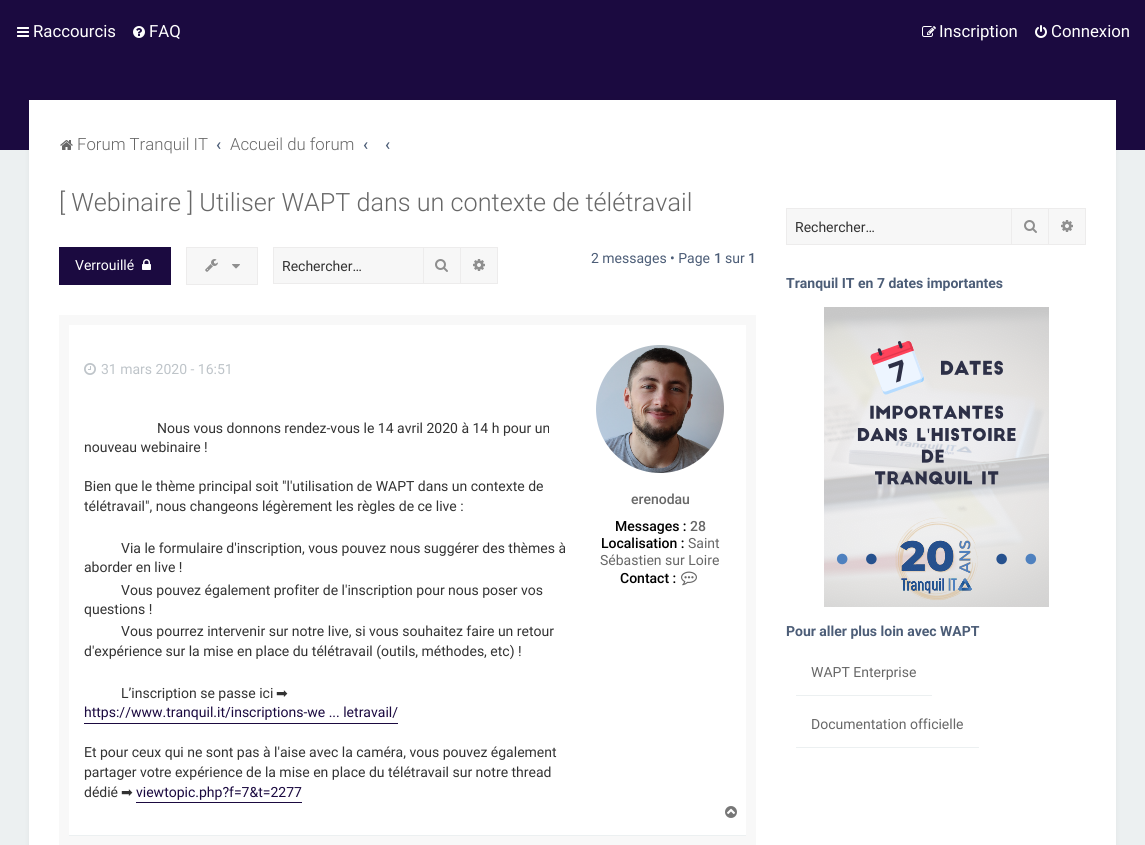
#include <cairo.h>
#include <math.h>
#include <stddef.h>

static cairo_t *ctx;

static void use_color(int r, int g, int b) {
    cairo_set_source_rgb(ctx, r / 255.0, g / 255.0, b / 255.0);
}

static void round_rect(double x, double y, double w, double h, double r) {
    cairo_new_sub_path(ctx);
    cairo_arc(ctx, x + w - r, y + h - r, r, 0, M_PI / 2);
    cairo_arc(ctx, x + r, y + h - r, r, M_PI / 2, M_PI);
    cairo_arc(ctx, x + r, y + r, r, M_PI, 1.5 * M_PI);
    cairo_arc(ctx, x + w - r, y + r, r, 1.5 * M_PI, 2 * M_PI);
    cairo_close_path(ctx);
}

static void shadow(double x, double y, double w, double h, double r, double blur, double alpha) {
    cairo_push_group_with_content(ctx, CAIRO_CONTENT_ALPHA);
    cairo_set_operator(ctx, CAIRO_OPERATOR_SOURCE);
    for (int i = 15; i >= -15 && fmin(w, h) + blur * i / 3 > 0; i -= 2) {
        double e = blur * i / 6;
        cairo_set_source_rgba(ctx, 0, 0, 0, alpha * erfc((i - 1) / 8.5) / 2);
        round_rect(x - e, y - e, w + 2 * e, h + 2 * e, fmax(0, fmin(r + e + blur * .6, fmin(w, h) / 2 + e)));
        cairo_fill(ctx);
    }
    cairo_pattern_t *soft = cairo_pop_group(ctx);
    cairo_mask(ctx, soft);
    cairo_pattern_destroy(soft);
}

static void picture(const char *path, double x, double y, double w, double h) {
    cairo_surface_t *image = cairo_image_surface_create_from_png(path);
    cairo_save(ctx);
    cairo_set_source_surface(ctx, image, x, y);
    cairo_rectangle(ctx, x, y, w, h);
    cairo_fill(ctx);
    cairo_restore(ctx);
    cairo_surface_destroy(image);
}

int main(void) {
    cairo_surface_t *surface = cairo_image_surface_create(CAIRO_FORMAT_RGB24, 1145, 845);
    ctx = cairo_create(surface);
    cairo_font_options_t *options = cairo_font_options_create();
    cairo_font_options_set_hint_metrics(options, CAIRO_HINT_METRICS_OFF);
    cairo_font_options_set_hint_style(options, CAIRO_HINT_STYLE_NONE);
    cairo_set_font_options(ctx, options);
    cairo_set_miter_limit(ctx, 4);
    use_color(236, 240, 241);
    cairo_paint(ctx);
    use_color(27, 10, 64);
    cairo_rectangle(ctx, 0, 0, 1145, 150);
    cairo_fill(ctx);
    picture("img1.png", 17, 27, 12, 10);
    cairo_select_font_face(ctx, "Roboto", CAIRO_FONT_SLANT_NORMAL, CAIRO_FONT_WEIGHT_NORMAL);
    cairo_set_font_size(ctx, 16.75);
    use_color(255, 255, 255);
    cairo_move_to(ctx, 33, 37);
    cairo_show_text(ctx, "Raccourcis");
    picture("img2.png", 133, 26, 12, 12);
    cairo_move_to(ctx, 149, 37);
    cairo_show_text(ctx, "FAQ");
    picture("img3.png", 922, 26, 14, 11);
    cairo_move_to(ctx, 939, 37);
    cairo_show_text(ctx, "Inscription");
    picture("img4.png", 1035, 25, 12, 13);
    cairo_move_to(ctx, 1051, 37);
    cairo_show_text(ctx, "Connexion");
    use_color(0, 0, 0);
    shadow(29, 100, 1087, 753, 0, 2.5, 0.05);
    use_color(255, 255, 255);
    cairo_rectangle(ctx, 29, 100, 1087, 745);
    cairo_fill(ctx);
    picture("img5.png", 60, 140, 13, 10);
    cairo_select_font_face(ctx, "Roboto Light", CAIRO_FONT_SLANT_NORMAL, CAIRO_FONT_WEIGHT_NORMAL);
    use_color(103, 103, 103);
    cairo_move_to(ctx, 77, 150);
    cairo_show_text(ctx, "Forum Tranquil IT");
    cairo_select_font_face(ctx, "Roboto Medium", CAIRO_FONT_SLANT_NORMAL, CAIRO_FONT_WEIGHT_NORMAL);
    use_color(76, 93, 119);
    cairo_move_to(ctx, 216, 150);
    cairo_show_text(ctx, "‹");
    cairo_select_font_face(ctx, "Roboto Light", CAIRO_FONT_SLANT_NORMAL, CAIRO_FONT_WEIGHT_NORMAL);
    use_color(103, 103, 103);
    cairo_move_to(ctx, 230, 150);
    cairo_show_text(ctx, "Accueil du forum");
    cairo_select_font_face(ctx, "Roboto Medium", CAIRO_FONT_SLANT_NORMAL, CAIRO_FONT_WEIGHT_NORMAL);
    use_color(76, 93, 119);
    cairo_move_to(ctx, 363, 150);
    cairo_show_text(ctx, "‹");
    cairo_move_to(ctx, 385, 150);
    cairo_show_text(ctx, "‹");
    cairo_select_font_face(ctx, "Roboto Light", CAIRO_FONT_SLANT_NORMAL, CAIRO_FONT_WEIGHT_NORMAL);
    cairo_set_font_size(ctx, 25.2);
    use_color(103, 103, 103);
    cairo_move_to(ctx, 59, 211);
    cairo_show_text(ctx, "[ Webinaire ] Utiliser WAPT dans un contexte de télétravail");
    use_color(27, 10, 64);
    cairo_rectangle(ctx, 59, 247, 112, 38);
    cairo_fill(ctx);
    cairo_select_font_face(ctx, "Roboto", CAIRO_FONT_SLANT_NORMAL, CAIRO_FONT_WEIGHT_NORMAL);
    cairo_set_font_size(ctx, 14);
    use_color(255, 255, 255);
    cairo_move_to(ctx, 75, 270);
    cairo_show_text(ctx, "Verrouillé");
    picture("img6.png", 142, 259, 9, 11);
    use_color(247, 247, 247);
    cairo_rectangle(ctx, 186.5, 247.5, 71, 37);
    cairo_fill_preserve(ctx);
    use_color(237, 236, 236);
    cairo_set_line_width(ctx, 1);
    cairo_stroke(ctx);
    picture("img7.png", 205, 259, 13, 13);
    picture("img8.png", 232, 264, 8, 5);
    use_color(247, 247, 247);
    cairo_rectangle(ctx, 274, 248, 149, 35);
    cairo_fill(ctx);
    use_color(237, 236, 236);
    cairo_rectangle(ctx, 273, 247, 150, 1);
    cairo_fill(ctx);
    cairo_rectangle(ctx, 273, 283, 150, 1);
    cairo_fill(ctx);
    cairo_rectangle(ctx, 273, 247, 1, 37);
    cairo_fill(ctx);
    use_color(51, 51, 51);
    cairo_move_to(ctx, 282, 271);
    cairo_show_text(ctx, "Rechercher…");
    use_color(247, 247, 247);
    cairo_rectangle(ctx, 423.5, 247.5, 37, 36);
    cairo_fill_preserve(ctx);
    use_color(237, 236, 236);
    cairo_stroke(ctx);
    picture("img9.png", 435, 259, 13, 13);
    use_color(247, 247, 247);
    cairo_rectangle(ctx, 461, 248, 36, 35);
    cairo_fill(ctx);
    use_color(237, 236, 236);
    cairo_rectangle(ctx, 461, 247, 37, 1);
    cairo_fill(ctx);
    cairo_rectangle(ctx, 497, 247, 1, 37);
    cairo_fill(ctx);
    cairo_rectangle(ctx, 461, 283, 37, 1);
    cairo_fill(ctx);
    picture("img10.png", 473, 259, 12, 12);
    use_color(76, 93, 119);
    cairo_move_to(ctx, 591, 263);
    cairo_show_text(ctx, "2 messages • Page");
    cairo_select_font_face(ctx, "Roboto Medium", CAIRO_FONT_SLANT_NORMAL, CAIRO_FONT_WEIGHT_NORMAL);
    cairo_move_to(ctx, 714, 263);
    cairo_show_text(ctx, "1");
    cairo_select_font_face(ctx, "Roboto", CAIRO_FONT_SLANT_NORMAL, CAIRO_FONT_WEIGHT_NORMAL);
    cairo_move_to(ctx, 725, 263);
    cairo_show_text(ctx, "sur");
    cairo_select_font_face(ctx, "Roboto Medium", CAIRO_FONT_SLANT_NORMAL, CAIRO_FONT_WEIGHT_NORMAL);
    cairo_move_to(ctx, 748, 263);
    cairo_show_text(ctx, "1");
    use_color(248, 248, 248);
    cairo_rectangle(ctx, 59, 315, 697, 530);
    cairo_fill(ctx);
    use_color(255, 255, 255);
    cairo_rectangle(ctx, 69, 325, 677, 510);
    cairo_fill(ctx);
    use_color(236, 240, 241);
    cairo_rectangle(ctx, 69, 835, 677, 1);
    cairo_fill(ctx);
    picture("img11.png", 84, 363, 12, 12);
    cairo_select_font_face(ctx, "Roboto", CAIRO_FONT_SLANT_NORMAL, CAIRO_FONT_WEIGHT_NORMAL);
    use_color(190, 196, 201);
    cairo_move_to(ctx, 101, 374);
    cairo_show_text(ctx, "31 mars 2020 - 16:51");
    use_color(51, 51, 51);
    cairo_move_to(ctx, 157, 433);
    cairo_show_text(ctx, "Nous vous donnons rendez-vous le 14 avril 2020 à 14 h pour un");
    cairo_move_to(ctx, 84, 452);
    cairo_show_text(ctx, "nouveau webinaire !");
    cairo_move_to(ctx, 84, 491);
    cairo_show_text(ctx, "Bien que le thème principal soit \"l'utilisation de WAPT dans un contexte de");
    cairo_move_to(ctx, 84, 511);
    cairo_show_text(ctx, "télétravail\", nous changeons légèrement les règles de ce live :");
    cairo_move_to(ctx, 121, 553);
    cairo_show_text(ctx, "Via le formulaire d'inscription, vous pouvez nous suggérer des thèmes à");
    cairo_move_to(ctx, 84, 572);
    cairo_show_text(ctx, "aborder en live !");
    cairo_move_to(ctx, 121, 595);
    cairo_show_text(ctx, "Vous pouvez également profiter de l'inscription pour nous poser vos");
    cairo_move_to(ctx, 84, 614);
    cairo_show_text(ctx, "questions !");
    cairo_move_to(ctx, 121, 636);
    cairo_show_text(ctx, "Vous pourrez intervenir sur notre live, si vous souhaitez faire un retour");
    cairo_move_to(ctx, 84, 656);
    cairo_show_text(ctx, "d'expérience sur la mise en place du télétravail (outils, méthodes, etc) !");
    cairo_move_to(ctx, 121, 698);
    cairo_show_text(ctx, "L’inscription se passe ici");
    cairo_select_font_face(ctx, "DejaVu Sans", CAIRO_FONT_SLANT_NORMAL, CAIRO_FONT_WEIGHT_NORMAL);
    cairo_move_to(ctx, 276, 698);
    cairo_show_text(ctx, "➡");
    use_color(27, 10, 64);
    cairo_rectangle(ctx, 84, 723, 314, 1);
    cairo_fill(ctx);
    cairo_select_font_face(ctx, "Roboto", CAIRO_FONT_SLANT_NORMAL, CAIRO_FONT_WEIGHT_NORMAL);
    cairo_move_to(ctx, 84, 717);
    cairo_show_text(ctx, "https://www.tranquil.it/inscriptions-we ... letravail/");
    use_color(51, 51, 51);
    cairo_move_to(ctx, 84, 757);
    cairo_show_text(ctx, "Et pour ceux qui ne sont pas à l'aise avec la caméra, vous pouvez également");
    cairo_move_to(ctx, 84, 777);
    cairo_show_text(ctx, "partager votre expérience de la mise en place du télétravail sur notre thread");
    cairo_move_to(ctx, 84, 797);
    cairo_show_text(ctx, "dédié");
    cairo_select_font_face(ctx, "DejaVu Sans", CAIRO_FONT_SLANT_NORMAL, CAIRO_FONT_WEIGHT_NORMAL);
    cairo_move_to(ctx, 121, 797);
    cairo_show_text(ctx, "➡");
    use_color(27, 10, 64);
    cairo_rectangle(ctx, 136, 802, 166, 1);
    cairo_fill(ctx);
    cairo_select_font_face(ctx, "Roboto", CAIRO_FONT_SLANT_NORMAL, CAIRO_FONT_WEIGHT_NORMAL);
    cairo_move_to(ctx, 136, 797);
    cairo_show_text(ctx, "viewtopic.php?f=7&t=2277");
    picture("img12.png", 596, 345, 128, 128);
    cairo_select_font_face(ctx, "Roboto Medium", CAIRO_FONT_SLANT_NORMAL, CAIRO_FONT_WEIGHT_NORMAL);
    use_color(103, 103, 103);
    cairo_move_to(ctx, 631, 504);
    cairo_show_text(ctx, "erenodau");
    use_color(0, 0, 0);
    cairo_move_to(ctx, 615, 531);
    cairo_show_text(ctx, "Messages :");
    use_color(103, 103, 103);
    cairo_move_to(ctx, 690, 531);
    cairo_show_text(ctx, "28");
    use_color(0, 0, 0);
    cairo_move_to(ctx, 601, 548);
    cairo_show_text(ctx, "Localisation :");
    cairo_select_font_face(ctx, "Roboto", CAIRO_FONT_SLANT_NORMAL, CAIRO_FONT_WEIGHT_NORMAL);
    use_color(103, 103, 103);
    cairo_move_to(ctx, 688, 548);
    cairo_show_text(ctx, "Saint");
    cairo_move_to(ctx, 600, 565);
    cairo_show_text(ctx, "Sébastien sur Loire");
    cairo_select_font_face(ctx, "Roboto Medium", CAIRO_FONT_SLANT_NORMAL, CAIRO_FONT_WEIGHT_NORMAL);
    use_color(0, 0, 0);
    cairo_move_to(ctx, 620, 583);
    cairo_show_text(ctx, "Contact :");
    picture("img13.png", 681, 571, 16, 15);
    picture("img14.png", 725, 806, 12, 12);
    use_color(247, 247, 247);
    cairo_rectangle(ctx, 787, 209, 224, 35);
    cairo_fill(ctx);
    use_color(237, 236, 236);
    cairo_rectangle(ctx, 786, 208, 225, 1);
    cairo_fill(ctx);
    cairo_rectangle(ctx, 786, 244, 225, 1);
    cairo_fill(ctx);
    cairo_rectangle(ctx, 786, 208, 1, 37);
    cairo_fill(ctx);
    cairo_select_font_face(ctx, "Roboto", CAIRO_FONT_SLANT_NORMAL, CAIRO_FONT_WEIGHT_NORMAL);
    use_color(51, 51, 51);
    cairo_move_to(ctx, 795, 232);
    cairo_show_text(ctx, "Rechercher…");
    use_color(247, 247, 247);
    cairo_rectangle(ctx, 1011.5, 208.5, 37, 36);
    cairo_fill_preserve(ctx);
    use_color(237, 236, 236);
    cairo_stroke(ctx);
    picture("img9.png", 1024, 220, 13, 13);
    use_color(247, 247, 247);
    cairo_rectangle(ctx, 1049, 209, 36, 35);
    cairo_fill(ctx);
    use_color(237, 236, 236);
    cairo_rectangle(ctx, 1049, 208, 37, 1);
    cairo_fill(ctx);
    cairo_rectangle(ctx, 1085, 208, 1, 37);
    cairo_fill(ctx);
    cairo_rectangle(ctx, 1049, 244, 37, 1);
    cairo_fill(ctx);
    picture("img10.png", 1061, 220, 12, 12);
    cairo_select_font_face(ctx, "Roboto", CAIRO_FONT_SLANT_NORMAL, CAIRO_FONT_WEIGHT_BOLD);
    use_color(76, 93, 119);
    cairo_move_to(ctx, 786, 288);
    cairo_show_text(ctx, "Tranquil IT en 7 dates importantes");
    picture("img15.png", 824, 307, 225, 300);
    cairo_move_to(ctx, 786, 636);
    cairo_show_text(ctx, "Pour aller plus loin avec WAPT");
    use_color(236, 240, 241);
    cairo_rectangle(ctx, 796, 695, 136, 1);
    cairo_fill(ctx);
    cairo_select_font_face(ctx, "Roboto", CAIRO_FONT_SLANT_NORMAL, CAIRO_FONT_WEIGHT_NORMAL);
    use_color(103, 103, 103);
    cairo_move_to(ctx, 811, 677);
    cairo_show_text(ctx, "WAPT Enterprise");
    use_color(236, 240, 241);
    cairo_rectangle(ctx, 796, 747, 183, 1);
    cairo_fill(ctx);
    use_color(103, 103, 103);
    cairo_move_to(ctx, 811, 729);
    cairo_show_text(ctx, "Documentation officielle");
    cairo_surface_write_to_png(surface, "result.png");
    cairo_font_options_destroy(options);
    cairo_destroy(ctx);
    cairo_surface_destroy(surface);
    return 0;
}
